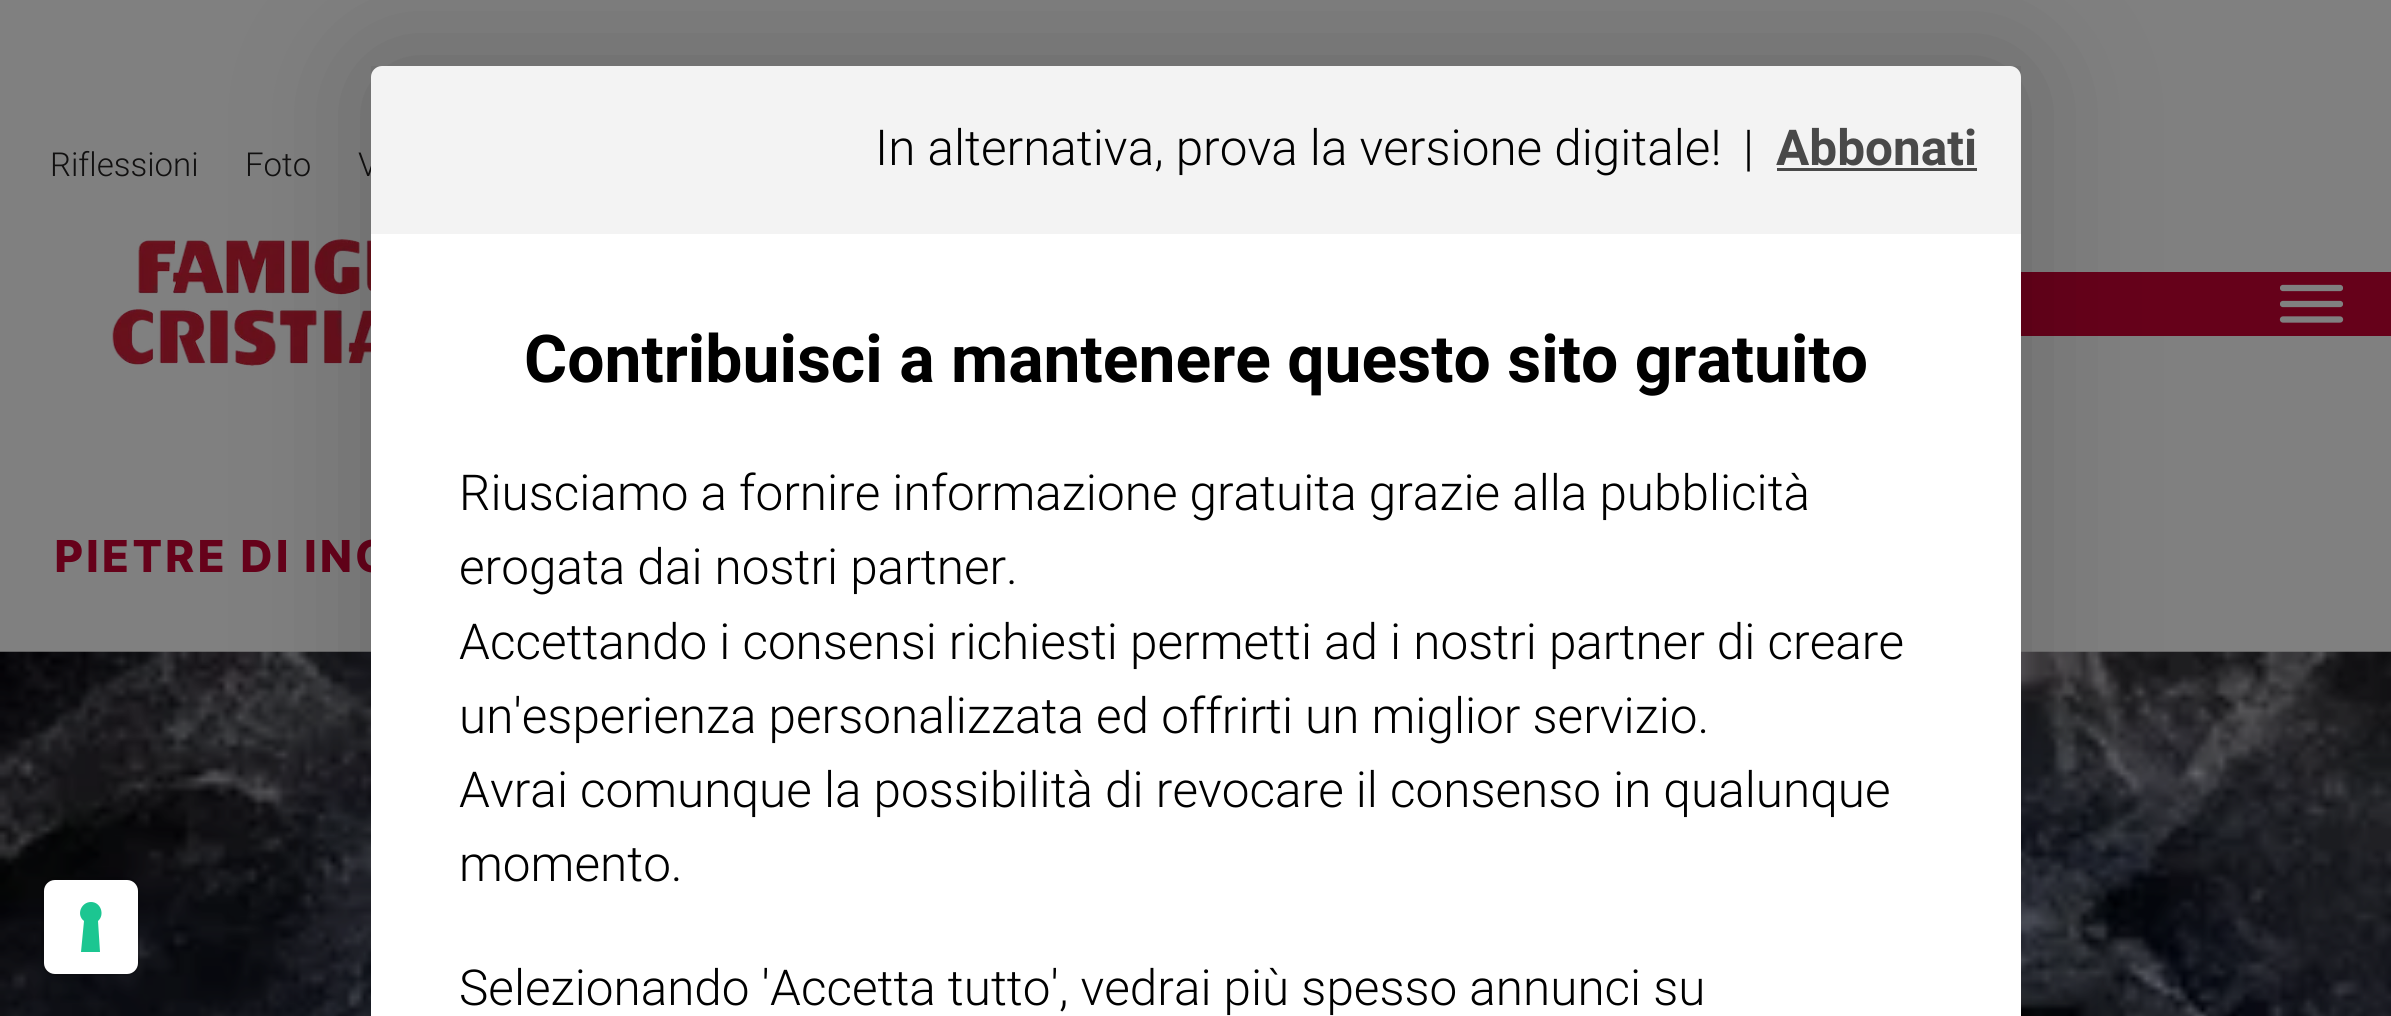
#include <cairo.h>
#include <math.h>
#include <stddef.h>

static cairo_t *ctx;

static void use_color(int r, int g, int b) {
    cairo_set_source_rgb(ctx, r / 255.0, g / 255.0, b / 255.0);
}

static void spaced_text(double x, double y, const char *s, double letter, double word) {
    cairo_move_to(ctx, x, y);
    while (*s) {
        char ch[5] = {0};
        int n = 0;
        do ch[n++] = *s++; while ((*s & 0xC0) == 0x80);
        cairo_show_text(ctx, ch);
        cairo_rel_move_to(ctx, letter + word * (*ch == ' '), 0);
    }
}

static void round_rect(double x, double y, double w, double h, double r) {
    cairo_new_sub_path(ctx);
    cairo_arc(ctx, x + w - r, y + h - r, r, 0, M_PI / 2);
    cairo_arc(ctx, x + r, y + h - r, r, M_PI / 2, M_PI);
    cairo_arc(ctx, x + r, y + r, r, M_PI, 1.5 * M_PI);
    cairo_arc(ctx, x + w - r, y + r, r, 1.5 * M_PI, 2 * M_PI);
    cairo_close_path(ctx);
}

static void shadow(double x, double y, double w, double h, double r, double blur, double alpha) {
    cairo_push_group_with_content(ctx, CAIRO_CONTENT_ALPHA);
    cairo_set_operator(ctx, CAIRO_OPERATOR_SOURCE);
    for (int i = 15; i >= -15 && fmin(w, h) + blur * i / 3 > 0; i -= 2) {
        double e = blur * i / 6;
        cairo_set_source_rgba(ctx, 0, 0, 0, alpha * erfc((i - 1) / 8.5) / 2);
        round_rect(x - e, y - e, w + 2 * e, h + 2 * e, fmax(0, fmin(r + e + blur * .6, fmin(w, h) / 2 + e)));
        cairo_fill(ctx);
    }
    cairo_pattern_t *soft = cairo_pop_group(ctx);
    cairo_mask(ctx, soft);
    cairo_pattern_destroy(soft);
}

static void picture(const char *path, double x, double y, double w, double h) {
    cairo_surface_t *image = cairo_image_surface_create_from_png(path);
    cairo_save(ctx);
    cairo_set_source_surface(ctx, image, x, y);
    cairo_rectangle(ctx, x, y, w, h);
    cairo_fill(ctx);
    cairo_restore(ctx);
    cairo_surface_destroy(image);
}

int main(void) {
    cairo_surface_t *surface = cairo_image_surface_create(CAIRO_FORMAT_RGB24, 2391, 1016);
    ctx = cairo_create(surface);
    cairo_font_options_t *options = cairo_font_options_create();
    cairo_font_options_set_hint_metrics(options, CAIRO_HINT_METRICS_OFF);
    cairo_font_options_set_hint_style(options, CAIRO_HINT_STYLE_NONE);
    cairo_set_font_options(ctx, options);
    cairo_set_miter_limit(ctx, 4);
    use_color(128, 128, 128);
    cairo_paint(ctx);
    cairo_select_font_face(ctx, "Roboto Light", CAIRO_FONT_SLANT_NORMAL, CAIRO_FONT_WEIGHT_NORMAL);
    cairo_set_font_size(ctx, 33);
    use_color(17, 16, 16);
    cairo_move_to(ctx, 50, 176);
    cairo_show_text(ctx, "Riflessioni");
    cairo_move_to(ctx, 245, 176);
    cairo_show_text(ctx, "Foto");
    cairo_move_to(ctx, 358, 176);
    cairo_show_text(ctx, "V");
    picture("img1.png", 112, 239, 259, 127);
    use_color(102, 1, 26);
    cairo_rectangle(ctx, 2021, 272, 370, 64);
    cairo_fill(ctx);
    cairo_save(ctx);
    cairo_rectangle(ctx, 2280, 272, 63, 64);
    cairo_clip(ctx);
    cairo_new_path(ctx);
    cairo_move_to(ctx, 2283, 288);
    cairo_line_to(ctx, 2340, 288);
    cairo_move_to(ctx, 2283, 304);
    cairo_line_to(ctx, 2340, 304);
    use_color(128, 128, 128);
    cairo_set_line_width(ctx, 6.3);
    cairo_set_line_cap(ctx, CAIRO_LINE_CAP_ROUND);
    cairo_stroke(ctx);
    cairo_restore(ctx);
    cairo_new_path(ctx);
    cairo_move_to(ctx, 2283, 319.5);
    cairo_line_to(ctx, 2340, 319.5);
    use_color(128, 128, 128);
    cairo_set_line_width(ctx, 6.3);
    cairo_set_line_cap(ctx, CAIRO_LINE_CAP_ROUND);
    cairo_stroke(ctx);
    cairo_select_font_face(ctx, "Inter Tight ExtraBold", CAIRO_FONT_SLANT_NORMAL, CAIRO_FONT_WEIGHT_NORMAL);
    cairo_set_font_size(ctx, 44);
    use_color(102, 1, 26);
    spaced_text(55, 572, "PIETRE DI INC", 4.4, 0);
    picture("img2.png", 0, 651, 2391, 365);
    use_color(0, 0, 0);
    shadow(371, 66, 1650, 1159, 11, 66, 0.2);
    use_color(255, 255, 255);
    cairo_new_path(ctx);
    cairo_move_to(ctx, 382, 66);
    cairo_line_to(ctx, 2010, 66);
    cairo_curve_to(ctx, 2016, 66, 2021, 71, 2021, 77);
    cairo_line_to(ctx, 2021, 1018);
    cairo_line_to(ctx, 371, 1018);
    cairo_line_to(ctx, 371, 77);
    cairo_curve_to(ctx, 371, 71, 376, 66, 382, 66);
    cairo_close_path(ctx);
    cairo_fill(ctx);
    cairo_set_source_rgba(ctx, 0, 0, 0, 0.05);
    cairo_rectangle(ctx, 371, 66, 1650, 168);
    cairo_fill(ctx);
    cairo_select_font_face(ctx, "Roboto Light", CAIRO_FONT_SLANT_NORMAL, CAIRO_FONT_WEIGHT_NORMAL);
    cairo_set_font_size(ctx, 49.5);
    use_color(0, 0, 0);
    cairo_move_to(ctx, 875, 165);
    cairo_show_text(ctx, "In alternativa, prova la versione digitale!");
    cairo_move_to(ctx, 1743, 165);
    cairo_show_text(ctx, "|");
    cairo_select_font_face(ctx, "Roboto", CAIRO_FONT_SLANT_NORMAL, CAIRO_FONT_WEIGHT_BOLD);
    use_color(73, 73, 73);
    cairo_move_to(ctx, 1776, 165);
    cairo_show_text(ctx, "Abbonati");
    cairo_rectangle(ctx, 1777, 168, 200, 3);
    cairo_fill(ctx);
    cairo_set_font_size(ctx, 66);
    use_color(0, 0, 0);
    cairo_move_to(ctx, 524, 382);
    cairo_show_text(ctx, "Contribuisci a mantenere questo sito gratuito");
    cairo_select_font_face(ctx, "Roboto Light", CAIRO_FONT_SLANT_NORMAL, CAIRO_FONT_WEIGHT_NORMAL);
    cairo_set_font_size(ctx, 49.5);
    cairo_move_to(ctx, 459, 510);
    cairo_show_text(ctx, "Riusciamo a fornire informazione gratuita grazie alla pubblicità");
    cairo_move_to(ctx, 459, 584);
    cairo_show_text(ctx, "erogata dai nostri partner.");
    cairo_move_to(ctx, 459, 659);
    cairo_show_text(ctx, "Accettando i consensi richiesti permetti ad i nostri partner di creare");
    cairo_move_to(ctx, 459, 733);
    cairo_show_text(ctx, "un'esperienza personalizzata ed offrirti un miglior servizio.");
    cairo_move_to(ctx, 459, 807);
    cairo_show_text(ctx, "Avrai comunque la possibilità di revocare il consenso in qualunque");
    cairo_move_to(ctx, 459, 881);
    cairo_show_text(ctx, "momento.");
    cairo_move_to(ctx, 459, 1005);
    cairo_show_text(ctx, "Selezionando 'Accetta tutto', vedrai più spesso annunci su");
    round_rect(42.5, 878.5, 96, 96, 12.5);
    cairo_set_source_rgba(ctx, 0, 0, 0, 0.15);
    cairo_set_line_width(ctx, 3);
    cairo_set_line_cap(ctx, CAIRO_LINE_CAP_BUTT);
    cairo_stroke(ctx);
    use_color(255, 255, 255);
    round_rect(44, 880, 94, 94, 11);
    cairo_fill(ctx);
    use_color(28, 198, 145);
    cairo_set_fill_rule(ctx, CAIRO_FILL_RULE_EVEN_ODD);
    cairo_new_path(ctx);
    cairo_move_to(ctx, 91, 902);
    cairo_curve_to(ctx, 101, 902, 105, 915, 98, 921);
    cairo_line_to(ctx, 100, 952);
    cairo_line_to(ctx, 81, 952);
    cairo_line_to(ctx, 84, 921);
    cairo_curve_to(ctx, 76, 915, 81, 902, 91, 902);
    cairo_close_path(ctx);
    cairo_fill(ctx);
    cairo_surface_write_to_png(surface, "result.png");
    cairo_font_options_destroy(options);
    cairo_destroy(ctx);
    cairo_surface_destroy(surface);
    return 0;
}
